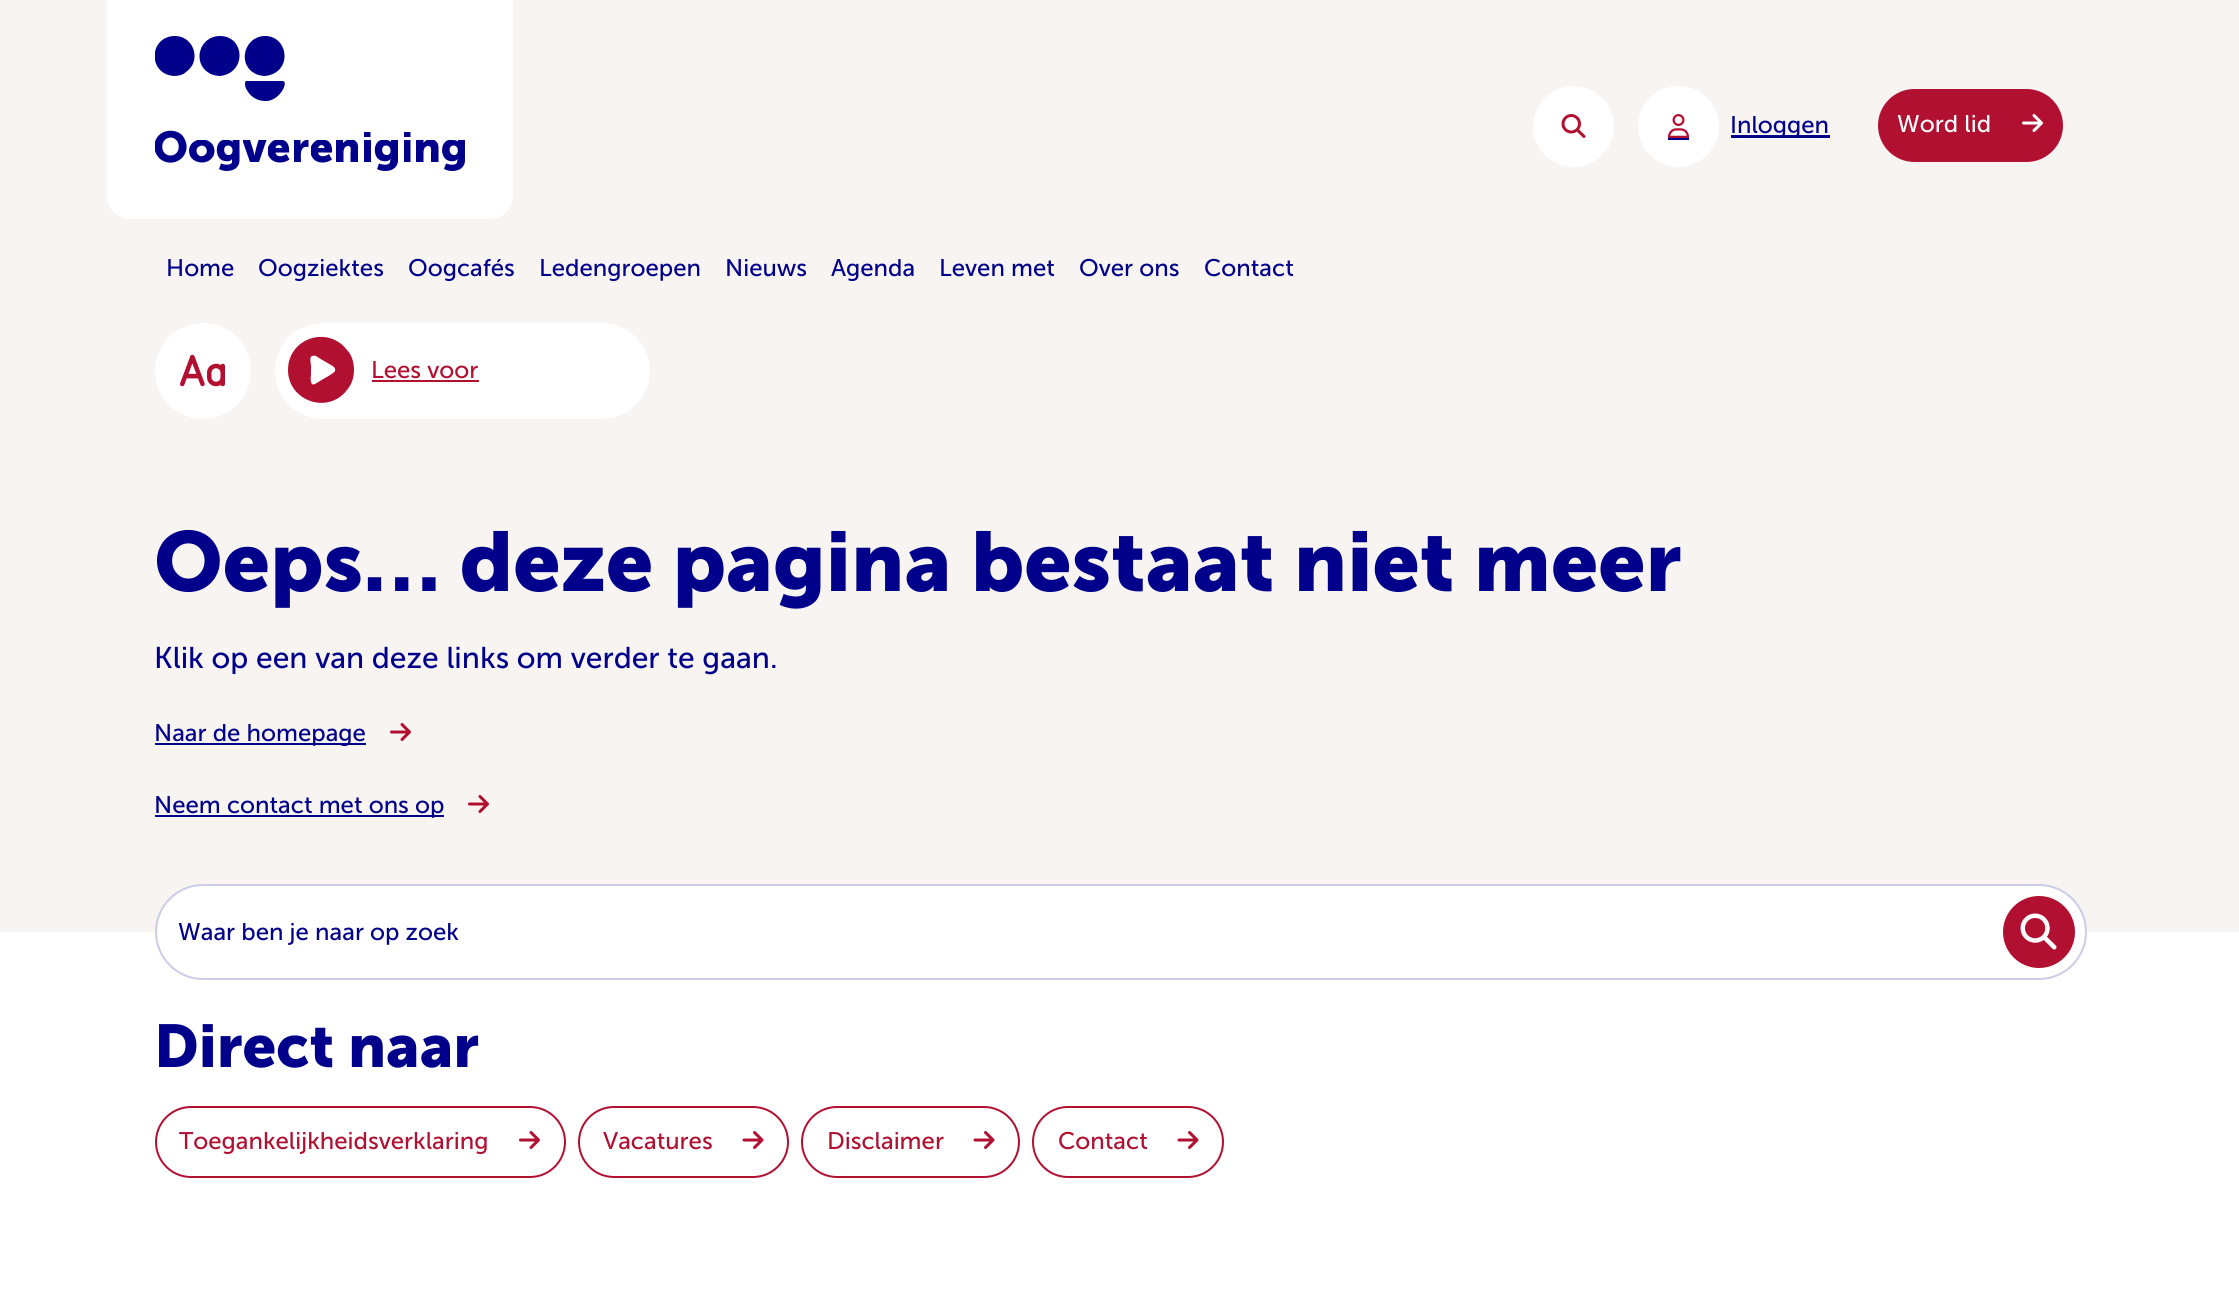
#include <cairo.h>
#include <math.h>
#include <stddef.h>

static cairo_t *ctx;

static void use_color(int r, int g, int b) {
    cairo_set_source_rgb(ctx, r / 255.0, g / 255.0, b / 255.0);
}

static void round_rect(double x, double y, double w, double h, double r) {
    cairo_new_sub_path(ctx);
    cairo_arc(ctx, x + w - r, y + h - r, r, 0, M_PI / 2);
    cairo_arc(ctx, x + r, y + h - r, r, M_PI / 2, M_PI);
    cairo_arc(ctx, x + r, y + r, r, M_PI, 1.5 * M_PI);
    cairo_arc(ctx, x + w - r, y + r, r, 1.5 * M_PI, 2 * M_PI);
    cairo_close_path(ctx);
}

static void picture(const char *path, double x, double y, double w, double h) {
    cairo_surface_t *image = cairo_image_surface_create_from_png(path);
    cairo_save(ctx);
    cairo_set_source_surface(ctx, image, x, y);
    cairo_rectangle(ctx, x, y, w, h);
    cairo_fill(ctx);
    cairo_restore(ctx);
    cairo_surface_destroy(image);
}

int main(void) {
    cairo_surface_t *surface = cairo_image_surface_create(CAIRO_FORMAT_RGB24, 2239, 1294);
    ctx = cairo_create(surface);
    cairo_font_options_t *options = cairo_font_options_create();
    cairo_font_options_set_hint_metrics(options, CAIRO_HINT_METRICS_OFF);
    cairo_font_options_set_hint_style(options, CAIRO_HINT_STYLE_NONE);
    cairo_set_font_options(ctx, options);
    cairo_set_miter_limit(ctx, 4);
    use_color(247, 244, 242);
    cairo_paint(ctx);
    use_color(255, 255, 255);
    cairo_new_path(ctx);
    cairo_move_to(ctx, 107, -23);
    cairo_line_to(ctx, 513, -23);
    cairo_line_to(ctx, 513, 196);
    cairo_curve_to(ctx, 513, 208.5, 502.5, 219, 490, 219);
    cairo_line_to(ctx, 130, 219);
    cairo_curve_to(ctx, 117.5, 219, 107, 208.5, 107, 196);
    cairo_close_path(ctx);
    cairo_fill(ctx);
    cairo_save(ctx);
    cairo_rectangle(ctx, 155, 36, 310, 135);
    cairo_clip(ctx);
    use_color(0, 0, 139);
    cairo_new_path(ctx);
    cairo_move_to(ctx, 175, 36);
    cairo_curve_to(ctx, 149, 36, 147, 74, 174, 76);
    cairo_curve_to(ctx, 178, 76, 183, 75, 186, 72);
    cairo_curve_to(ctx, 202, 61, 194, 36, 175, 36);
    cairo_close_path(ctx);
    cairo_fill(ctx);
    cairo_restore(ctx);
    use_color(0, 0, 139);
    cairo_new_path(ctx);
    cairo_move_to(ctx, 220, 36);
    cairo_curve_to(ctx, 199, 36, 192, 63, 209, 73);
    cairo_curve_to(ctx, 212, 75, 217, 76, 220, 76);
    cairo_curve_to(ctx, 247, 73, 245, 36, 220, 36);
    cairo_close_path(ctx);
    cairo_fill(ctx);
    cairo_new_path(ctx);
    cairo_move_to(ctx, 265, 36);
    cairo_curve_to(ctx, 245, 36, 237, 63, 254, 73);
    cairo_curve_to(ctx, 257, 75, 262, 76, 265, 76);
    cairo_curve_to(ctx, 293, 73, 289, 36, 265, 36);
    cairo_close_path(ctx);
    cairo_fill(ctx);
    cairo_new_path(ctx);
    cairo_move_to(ctx, 282.5, 81);
    cairo_curve_to(ctx, 289.5, 81, 279.5, 102.5, 264, 101);
    cairo_curve_to(ctx, 257, 100.5, 251, 97, 247.5, 91);
    cairo_curve_to(ctx, 246, 89, 245, 86.5, 245, 84);
    cairo_curve_to(ctx, 245, 82.5, 245, 81, 247, 81);
    cairo_close_path(ctx);
    cairo_fill(ctx);
    cairo_set_fill_rule(ctx, CAIRO_FILL_RULE_EVEN_ODD);
    cairo_new_path(ctx);
    cairo_move_to(ctx, 182, 135);
    cairo_curve_to(ctx, 175, 128.5, 162.5, 129.5, 157, 137.5);
    cairo_curve_to(ctx, 156, 139, 155, 141, 155, 142.5);
    cairo_line_to(ctx, 155, 151);
    cairo_curve_to(ctx, 155.5, 153.5, 157.5, 156, 159, 158);
    cairo_curve_to(ctx, 170, 168.5, 188, 160, 186.5, 145);
    cairo_curve_to(ctx, 186, 141.5, 184.5, 138, 182, 135);
    cairo_close_path(ctx);
    cairo_move_to(ctx, 170.5, 137.5);
    cairo_curve_to(ctx, 181.5, 138, 181.5, 155.5, 170.5, 155.5);
    cairo_curve_to(ctx, 159.5, 155.5, 159.5, 138, 170.5, 137.5);
    cairo_close_path(ctx);
    cairo_move_to(ctx, 206, 140);
    cairo_curve_to(ctx, 211, 141.5, 214.5, 145.5, 214.5, 151);
    cairo_curve_to(ctx, 214.5, 158, 208.5, 162.5, 202, 162.5);
    cairo_curve_to(ctx, 195, 162.5, 189, 158, 189, 151);
    cairo_curve_to(ctx, 189, 145.5, 192.5, 141.5, 197.5, 140);
    cairo_close_path(ctx);
    cairo_move_to(ctx, 199, 146.5);
    cairo_curve_to(ctx, 205.5, 142.5, 210, 152.5, 204, 155.5);
    cairo_curve_to(ctx, 198, 159, 193.5, 149.5, 199, 146.5);
    cairo_close_path(ctx);
    cairo_fill(ctx);
    cairo_new_path(ctx);
    cairo_move_to(ctx, 233, 141.5);
    cairo_line_to(ctx, 232.5, 141.5);
    cairo_curve_to(ctx, 230.5, 140, 229, 140, 226.5, 140);
    cairo_line_to(ctx, 223, 140);
    cairo_curve_to(ctx, 214.5, 142, 214.5, 159.5, 224.5, 161);
    cairo_curve_to(ctx, 227.5, 161.5, 230.5, 161.5, 232, 159);
    cairo_line_to(ctx, 232, 162.5);
    cairo_curve_to(ctx, 230, 166, 223.5, 164.5, 221, 163.5);
    cairo_line_to(ctx, 219, 169);
    cairo_curve_to(ctx, 221.5, 170.5, 224.5, 171, 227, 171);
    cairo_curve_to(ctx, 233, 171, 239.5, 168, 239.5, 160);
    cairo_line_to(ctx, 239.5, 140);
    cairo_line_to(ctx, 232.5, 140);
    cairo_close_path(ctx);
    cairo_move_to(ctx, 228, 145.5);
    cairo_curve_to(ctx, 234, 145.5, 234, 155.5, 228.5, 155);
    cairo_curve_to(ctx, 223, 155, 222.5, 145.5, 228, 145.5);
    cairo_close_path(ctx);
    cairo_fill(ctx);
    cairo_set_fill_rule(ctx, CAIRO_FILL_RULE_WINDING);
    cairo_new_path(ctx);
    cairo_move_to(ctx, 243, 140);
    cairo_line_to(ctx, 250, 140);
    cairo_curve_to(ctx, 251.5, 145, 253.5, 150, 254.5, 155.5);
    cairo_curve_to(ctx, 255.5, 150, 257, 145, 258.5, 140);
    cairo_line_to(ctx, 266.5, 140);
    cairo_line_to(ctx, 259, 162);
    cairo_line_to(ctx, 250, 162);
    cairo_line_to(ctx, 243, 142);
    cairo_close_path(ctx);
    cairo_fill(ctx);
    cairo_set_fill_rule(ctx, CAIRO_FILL_RULE_EVEN_ODD);
    cairo_new_path(ctx);
    cairo_move_to(ctx, 268, 147.5);
    cairo_curve_to(ctx, 268.5, 145, 272, 140.5, 275, 140);
    cairo_line_to(ctx, 283, 140);
    cairo_curve_to(ctx, 288.5, 141.5, 289.5, 147.5, 289, 152.5);
    cairo_line_to(ctx, 275.5, 152.5);
    cairo_curve_to(ctx, 276.5, 158, 283, 156.5, 286.5, 154);
    cairo_line_to(ctx, 289.5, 159.5);
    cairo_curve_to(ctx, 282.5, 164.5, 271, 163.5, 268, 154.5);
    cairo_close_path(ctx);
    cairo_move_to(ctx, 279, 145);
    cairo_curve_to(ctx, 280.5, 145, 282, 146.5, 282, 148);
    cairo_line_to(ctx, 275.5, 148);
    cairo_curve_to(ctx, 275.5, 146.5, 277, 145, 279, 145);
    cairo_close_path(ctx);
    cairo_fill(ctx);
    cairo_set_fill_rule(ctx, CAIRO_FILL_RULE_WINDING);
    cairo_new_path(ctx);
    cairo_move_to(ctx, 294, 140);
    cairo_line_to(ctx, 300.5, 140);
    cairo_line_to(ctx, 300.5, 145);
    cairo_curve_to(ctx, 301.5, 142.5, 303, 141, 305.5, 140);
    cairo_line_to(ctx, 308.5, 140);
    cairo_line_to(ctx, 308.5, 147);
    cairo_curve_to(ctx, 299, 145, 301, 156.5, 301, 162);
    cairo_line_to(ctx, 294, 162);
    cairo_close_path(ctx);
    cairo_fill(ctx);
    cairo_set_fill_rule(ctx, CAIRO_FILL_RULE_EVEN_ODD);
    cairo_new_path(ctx);
    cairo_move_to(ctx, 311, 146.5);
    cairo_curve_to(ctx, 312, 144, 315, 140.5, 317.5, 140);
    cairo_line_to(ctx, 325.5, 140);
    cairo_curve_to(ctx, 331, 141, 332.5, 147.5, 332, 152.5);
    cairo_line_to(ctx, 318, 152.5);
    cairo_curve_to(ctx, 319, 158, 326, 156.5, 329, 154);
    cairo_line_to(ctx, 332, 159.5);
    cairo_curve_to(ctx, 326.5, 163.5, 317.5, 164, 313, 158.5);
    cairo_line_to(ctx, 311, 155);
    cairo_close_path(ctx);
    cairo_move_to(ctx, 321.5, 145);
    cairo_curve_to(ctx, 323.5, 145, 324.5, 146.5, 324.5, 148);
    cairo_line_to(ctx, 318, 148);
    cairo_curve_to(ctx, 318.5, 146.5, 320, 145, 321.5, 145);
    cairo_close_path(ctx);
    cairo_fill(ctx);
    cairo_set_fill_rule(ctx, CAIRO_FILL_RULE_WINDING);
    cairo_new_path(ctx);
    cairo_move_to(ctx, 343, 140);
    cairo_line_to(ctx, 343, 143);
    cairo_curve_to(ctx, 344, 142, 345.5, 140.5, 347, 140);
    cairo_line_to(ctx, 354, 140);
    cairo_curve_to(ctx, 356, 141, 357.5, 142.5, 358, 145.5);
    cairo_line_to(ctx, 358, 162);
    cairo_line_to(ctx, 350.5, 162);
    cairo_line_to(ctx, 350.5, 153.5);
    cairo_curve_to(ctx, 350.5, 150.5, 352, 145.5, 347.5, 146);
    cairo_curve_to(ctx, 343, 147, 343.5, 152, 343.5, 155.5);
    cairo_line_to(ctx, 343.5, 162);
    cairo_line_to(ctx, 336, 162);
    cairo_line_to(ctx, 336, 140);
    cairo_close_path(ctx);
    cairo_fill(ctx);
    cairo_set_fill_rule(ctx, CAIRO_FILL_RULE_EVEN_ODD);
    cairo_new_path(ctx);
    cairo_move_to(ctx, 371, 140);
    cairo_line_to(ctx, 371, 162);
    cairo_line_to(ctx, 364, 162);
    cairo_line_to(ctx, 364, 140);
    cairo_close_path(ctx);
    cairo_move_to(ctx, 364, 132);
    cairo_line_to(ctx, 370.5, 132);
    cairo_line_to(ctx, 370.5, 137);
    cairo_line_to(ctx, 364, 137);
    cairo_close_path(ctx);
    cairo_move_to(ctx, 391, 141.5);
    cairo_line_to(ctx, 390.5, 141.5);
    cairo_curve_to(ctx, 389, 140, 387, 140, 384.5, 140);
    cairo_line_to(ctx, 381, 140);
    cairo_curve_to(ctx, 372.5, 142, 372.5, 159.5, 382.5, 161);
    cairo_curve_to(ctx, 385.5, 161.5, 388.5, 161.5, 390.5, 159);
    cairo_line_to(ctx, 390, 162.5);
    cairo_curve_to(ctx, 388, 166, 382, 164.5, 379, 163.5);
    cairo_line_to(ctx, 377, 169);
    cairo_curve_to(ctx, 379.5, 170.5, 382.5, 171, 385.5, 171);
    cairo_curve_to(ctx, 391.5, 171, 398, 168, 398, 160);
    cairo_line_to(ctx, 398, 140);
    cairo_line_to(ctx, 391, 140);
    cairo_close_path(ctx);
    cairo_move_to(ctx, 386, 145.5);
    cairo_curve_to(ctx, 392, 145.5, 392, 155.5, 386.5, 155);
    cairo_curve_to(ctx, 381, 155, 380.5, 145.5, 386, 145.5);
    cairo_close_path(ctx);
    cairo_move_to(ctx, 410.5, 140);
    cairo_line_to(ctx, 410.5, 162);
    cairo_line_to(ctx, 404, 162);
    cairo_line_to(ctx, 404, 140);
    cairo_close_path(ctx);
    cairo_move_to(ctx, 404, 132);
    cairo_line_to(ctx, 410.5, 132);
    cairo_line_to(ctx, 410.5, 137);
    cairo_line_to(ctx, 404, 137);
    cairo_close_path(ctx);
    cairo_fill(ctx);
    cairo_set_fill_rule(ctx, CAIRO_FILL_RULE_WINDING);
    cairo_new_path(ctx);
    cairo_move_to(ctx, 423.5, 140);
    cairo_line_to(ctx, 423.5, 143);
    cairo_curve_to(ctx, 424, 142, 425.5, 140.5, 427, 140);
    cairo_line_to(ctx, 434, 140);
    cairo_curve_to(ctx, 436.5, 141, 438.5, 143.5, 438.5, 147.5);
    cairo_line_to(ctx, 438.5, 162);
    cairo_line_to(ctx, 431, 162);
    cairo_line_to(ctx, 431, 153.5);
    cairo_curve_to(ctx, 431, 150.5, 432, 145.5, 427.5, 146);
    cairo_curve_to(ctx, 423, 147, 423.5, 152, 423.5, 155.5);
    cairo_line_to(ctx, 423.5, 162);
    cairo_line_to(ctx, 416, 162);
    cairo_line_to(ctx, 416, 140);
    cairo_close_path(ctx);
    cairo_fill(ctx);
    cairo_set_fill_rule(ctx, CAIRO_FILL_RULE_EVEN_ODD);
    cairo_new_path(ctx);
    cairo_move_to(ctx, 458, 141.5);
    cairo_curve_to(ctx, 456, 140, 454.5, 140, 452, 140);
    cairo_line_to(ctx, 448.5, 140);
    cairo_curve_to(ctx, 439.5, 142.5, 440, 159, 449.5, 161);
    cairo_curve_to(ctx, 452.5, 161.5, 455.5, 161.5, 457.5, 159);
    cairo_line_to(ctx, 457, 162.5);
    cairo_curve_to(ctx, 455.5, 166, 449, 164.5, 446, 163.5);
    cairo_line_to(ctx, 444, 169);
    cairo_curve_to(ctx, 447, 170.5, 449.5, 171, 452.5, 171);
    cairo_curve_to(ctx, 458.5, 171, 465, 168, 465, 160);
    cairo_line_to(ctx, 465, 140);
    cairo_line_to(ctx, 458, 140);
    cairo_close_path(ctx);
    cairo_move_to(ctx, 453.5, 145.5);
    cairo_curve_to(ctx, 459.5, 145.5, 459, 155.5, 454, 155);
    cairo_curve_to(ctx, 448.5, 155, 448, 145.5, 453.5, 145.5);
    cairo_close_path(ctx);
    cairo_fill(ctx);
    use_color(255, 255, 255);
    cairo_arc(ctx, 1573.5, 126.5, 39, 0, 2 * M_PI);
    cairo_fill_preserve(ctx);
    cairo_set_line_width(ctx, 3);
    cairo_stroke(ctx);
    picture("img1.png", 1561, 114, 25, 24);
    cairo_arc(ctx, 1678.5, 126.5, 39, 0, 2 * M_PI);
    cairo_fill_preserve(ctx);
    cairo_stroke(ctx);
    use_color(0, 0, 139);
    cairo_rectangle(ctx, 1668, 137, 21, 3);
    cairo_fill(ctx);
    picture("img2.png", 1668, 114, 21, 24);
    cairo_rectangle(ctx, 1731, 135, 99, 3);
    cairo_fill(ctx);
    cairo_select_font_face(ctx, "Museo Sans", CAIRO_FONT_SLANT_NORMAL, CAIRO_FONT_WEIGHT_NORMAL);
    cairo_set_font_size(ctx, 24);
    cairo_move_to(ctx, 1730, 133);
    cairo_show_text(ctx, "Inloggen");
    use_color(177, 16, 49);
    round_rect(1879, 90, 183, 71, 35.5);
    cairo_fill_preserve(ctx);
    cairo_set_line_width(ctx, 2);
    cairo_stroke(ctx);
    use_color(255, 255, 255);
    cairo_move_to(ctx, 1897, 132);
    cairo_show_text(ctx, "Word lid");
    picture("img3.png", 2022, 114, 21, 18);
    use_color(0, 0, 139);
    cairo_move_to(ctx, 166, 276);
    cairo_show_text(ctx, "Home");
    cairo_move_to(ctx, 258, 276);
    cairo_show_text(ctx, "Oogziektes");
    cairo_move_to(ctx, 408, 276);
    cairo_show_text(ctx, "Oogcafés");
    cairo_move_to(ctx, 539, 276);
    cairo_show_text(ctx, "Ledengroepen");
    cairo_move_to(ctx, 725, 276);
    cairo_show_text(ctx, "Nieuws");
    cairo_move_to(ctx, 831, 276);
    cairo_show_text(ctx, "Agenda");
    cairo_move_to(ctx, 939, 276);
    cairo_show_text(ctx, "Leven met");
    cairo_move_to(ctx, 1079, 276);
    cairo_show_text(ctx, "Over ons");
    cairo_move_to(ctx, 1204, 276);
    cairo_show_text(ctx, "Contact");
    use_color(255, 255, 255);
    cairo_new_path(ctx);
    cairo_arc(ctx, 203, 371, 46.5, 0, 2 * M_PI);
    cairo_fill_preserve(ctx);
    cairo_set_line_width(ctx, 3);
    cairo_stroke(ctx);
    picture("img4.png", 180, 354, 45, 33);
    round_rect(275, 323, 375, 96, 48);
    cairo_fill(ctx);
    use_color(177, 16, 49);
    cairo_set_fill_rule(ctx, CAIRO_FILL_RULE_WINDING);
    cairo_new_path(ctx);
    cairo_move_to(ctx, 288, 370);
    cairo_curve_to(ctx, 288, 338, 328, 325, 347, 350);
    cairo_curve_to(ctx, 352, 355, 354, 363, 354, 370);
    cairo_curve_to(ctx, 354, 377, 352, 384, 347, 390);
    cairo_curve_to(ctx, 328, 415, 288, 401, 288, 370);
    cairo_close_path(ctx);
    cairo_move_to(ctx, 312, 356);
    cairo_curve_to(ctx, 309, 357, 311, 364, 311, 366);
    cairo_line_to(ctx, 311, 374);
    cairo_curve_to(ctx, 311, 375, 309, 387, 315, 384);
    cairo_line_to(ctx, 325, 378);
    cairo_curve_to(ctx, 327, 377, 334, 373, 335, 371);
    cairo_curve_to(ctx, 336, 368, 333, 366, 331, 365);
    cairo_line_to(ctx, 319, 358);
    cairo_curve_to(ctx, 316, 356, 315, 355, 312, 356);
    cairo_close_path(ctx);
    cairo_fill(ctx);
    cairo_move_to(ctx, 371, 378);
    cairo_show_text(ctx, "Lees voor");
    cairo_rectangle(ctx, 372, 380, 107, 2);
    cairo_fill(ctx);
    cairo_select_font_face(ctx, "Museo Sans", CAIRO_FONT_SLANT_NORMAL, CAIRO_FONT_WEIGHT_BOLD);
    cairo_set_font_size(ctx, 84);
    use_color(0, 0, 139);
    cairo_move_to(ctx, 154, 591);
    cairo_show_text(ctx, "Oeps… deze pagina bestaat niet meer");
    cairo_select_font_face(ctx, "Museo Sans", CAIRO_FONT_SLANT_NORMAL, CAIRO_FONT_WEIGHT_NORMAL);
    cairo_set_font_size(ctx, 30);
    cairo_move_to(ctx, 154, 668);
    cairo_show_text(ctx, "Klik op een van deze links om verder te gaan.");
    cairo_rectangle(ctx, 155, 743, 211, 2);
    cairo_fill(ctx);
    cairo_set_font_size(ctx, 24);
    cairo_move_to(ctx, 154, 741);
    cairo_show_text(ctx, "Naar de homepage");
    picture("img5.png", 390, 723, 21, 18);
    cairo_rectangle(ctx, 155, 815, 289, 2);
    cairo_fill(ctx);
    cairo_move_to(ctx, 154, 813);
    cairo_show_text(ctx, "Neem contact met ons op");
    picture("img5.png", 468, 795, 21, 18);
    use_color(255, 255, 255);
    cairo_rectangle(ctx, 0, 932, 2239, 362);
    cairo_fill(ctx);
    round_rect(155, 884, 1932, 96, 48);
    cairo_fill(ctx);
    round_rect(156, 885, 1930, 94, 47);
    cairo_set_source_rgba(ctx, 0, 0, 0.545, 0.2);
    cairo_set_line_width(ctx, 2);
    cairo_stroke(ctx);
    use_color(0, 0, 139);
    cairo_move_to(ctx, 178, 940);
    cairo_show_text(ctx, "Waar ben je naar op zoek");
    use_color(177, 16, 49);
    cairo_new_path(ctx);
    cairo_arc(ctx, 2039, 932, 35, 0, 2 * M_PI);
    cairo_fill_preserve(ctx);
    cairo_stroke(ctx);
    picture("img6.png", 2020, 913, 37, 37);
    cairo_select_font_face(ctx, "Museo Sans", CAIRO_FONT_SLANT_NORMAL, CAIRO_FONT_WEIGHT_BOLD);
    cairo_set_font_size(ctx, 60);
    use_color(0, 0, 139);
    cairo_move_to(ctx, 154, 1067);
    cairo_show_text(ctx, "Direct naar");
    round_rect(156, 1107, 409, 70, 35);
    use_color(177, 16, 49);
    cairo_stroke(ctx);
    cairo_select_font_face(ctx, "Museo Sans", CAIRO_FONT_SLANT_NORMAL, CAIRO_FONT_WEIGHT_NORMAL);
    cairo_set_font_size(ctx, 24);
    cairo_move_to(ctx, 179, 1149);
    cairo_show_text(ctx, "Toegankelijkheidsverklaring");
    picture("img7.png", 519, 1131, 21, 18);
    round_rect(579, 1107, 209, 70, 35);
    cairo_stroke(ctx);
    cairo_move_to(ctx, 603, 1149);
    cairo_show_text(ctx, "Vacatures");
    picture("img8.png", 742, 1131, 22, 18);
    round_rect(802, 1107, 217, 70, 35);
    cairo_stroke(ctx);
    cairo_move_to(ctx, 827, 1149);
    cairo_show_text(ctx, "Disclaimer");
    picture("img8.png", 973, 1131, 22, 18);
    round_rect(1033, 1107, 190, 70, 35);
    cairo_stroke(ctx);
    cairo_move_to(ctx, 1058, 1149);
    cairo_show_text(ctx, "Contact");
    picture("img8.png", 1177, 1131, 22, 18);
    cairo_surface_write_to_png(surface, "result.png");
    cairo_font_options_destroy(options);
    cairo_destroy(ctx);
    cairo_surface_destroy(surface);
    return 0;
}
